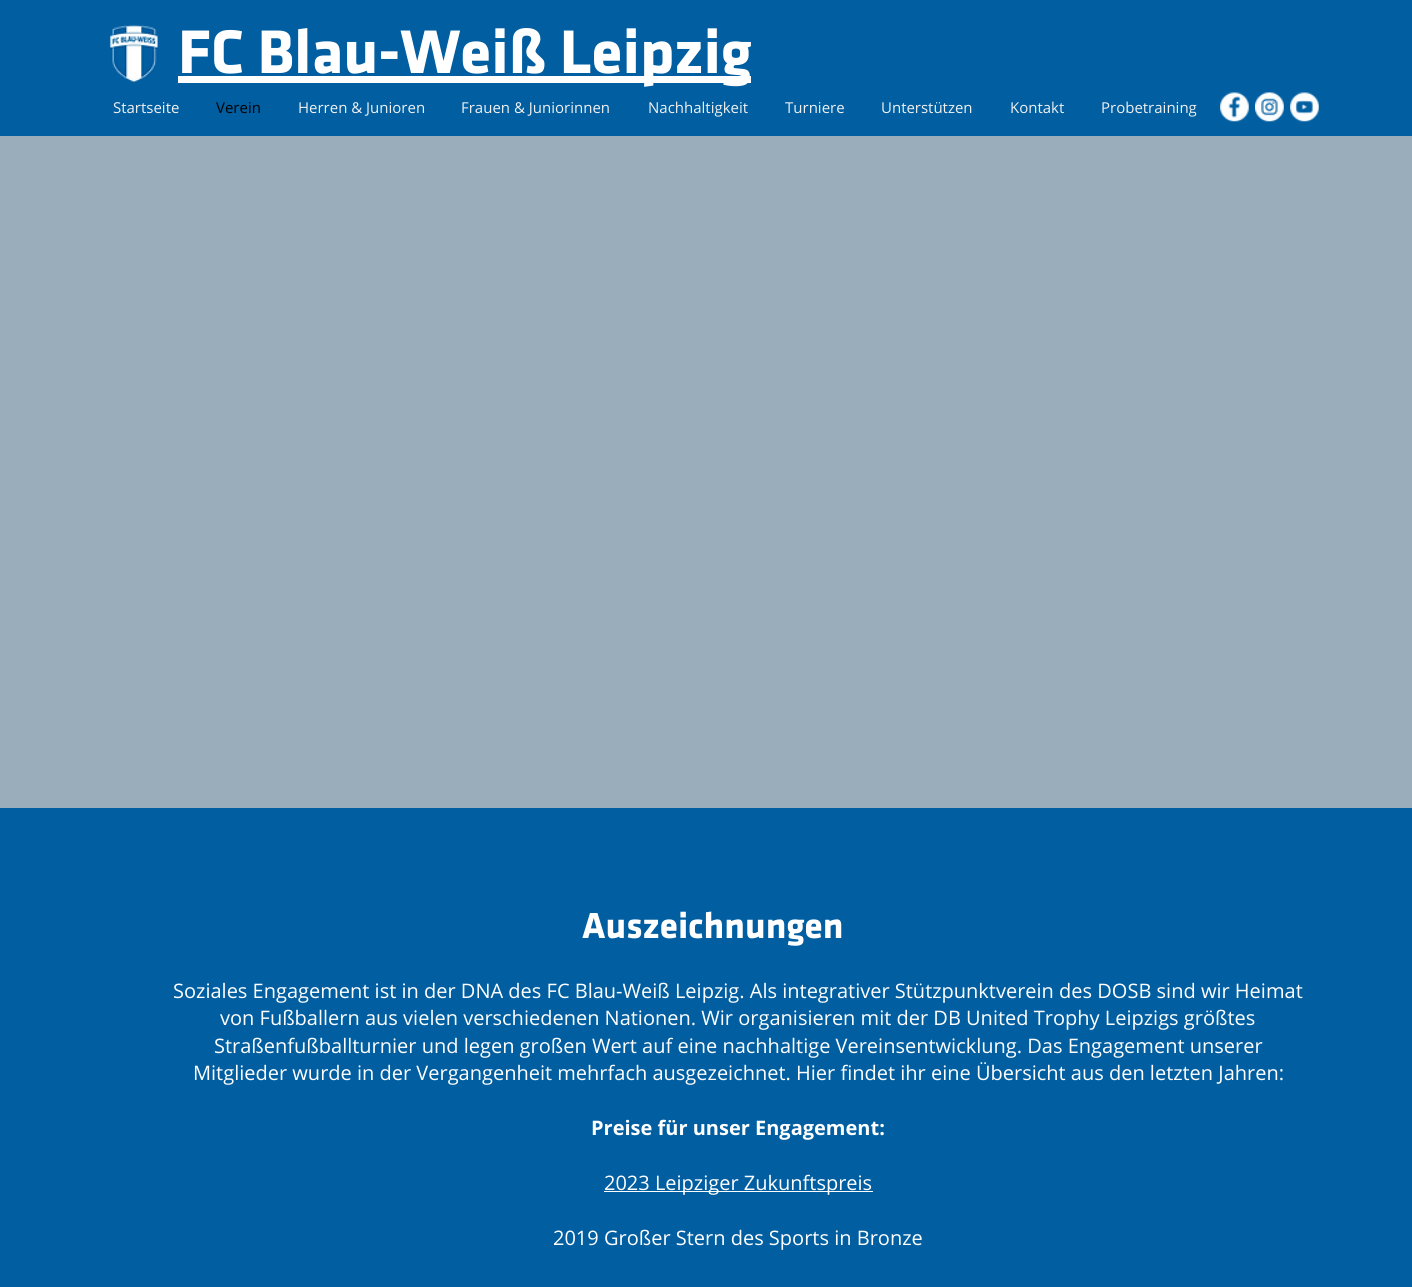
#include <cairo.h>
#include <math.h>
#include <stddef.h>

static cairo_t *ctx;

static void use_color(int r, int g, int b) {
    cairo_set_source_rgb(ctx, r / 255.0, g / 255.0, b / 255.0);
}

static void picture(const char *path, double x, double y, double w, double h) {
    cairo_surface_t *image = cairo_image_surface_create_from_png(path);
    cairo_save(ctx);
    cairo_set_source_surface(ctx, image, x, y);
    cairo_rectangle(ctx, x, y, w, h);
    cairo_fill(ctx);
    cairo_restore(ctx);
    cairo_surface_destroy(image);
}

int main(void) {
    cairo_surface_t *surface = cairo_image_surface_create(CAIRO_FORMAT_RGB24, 1412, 1287);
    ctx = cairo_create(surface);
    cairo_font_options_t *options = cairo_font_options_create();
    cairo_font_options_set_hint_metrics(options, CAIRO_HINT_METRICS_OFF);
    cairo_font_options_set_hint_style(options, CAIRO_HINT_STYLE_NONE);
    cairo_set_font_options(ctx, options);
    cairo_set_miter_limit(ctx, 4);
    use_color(0, 94, 161);
    cairo_paint(ctx);
    picture("img1.png", 109, 25, 49, 58);
    use_color(255, 255, 255);
    cairo_rectangle(ctx, 178, 76, 573, 7);
    cairo_fill(ctx);
    cairo_select_font_face(ctx, "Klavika", CAIRO_FONT_SLANT_NORMAL, CAIRO_FONT_WEIGHT_BOLD);
    cairo_set_font_size(ctx, 63.75);
    cairo_move_to(ctx, 178, 73);
    cairo_show_text(ctx, "FC Blau-Weiß Leipzig");
    cairo_select_font_face(ctx, "Open Sans", CAIRO_FONT_SLANT_NORMAL, CAIRO_FONT_WEIGHT_NORMAL);
    cairo_set_font_size(ctx, 15);
    use_color(240, 240, 240);
    cairo_move_to(ctx, 113, 113);
    cairo_show_text(ctx, "Startseite");
    use_color(0, 0, 0);
    cairo_move_to(ctx, 216, 113);
    cairo_show_text(ctx, "Verein");
    use_color(240, 240, 240);
    cairo_move_to(ctx, 298, 113);
    cairo_show_text(ctx, "Herren & Junioren");
    cairo_move_to(ctx, 461, 113);
    cairo_show_text(ctx, "Frauen & Juniorinnen");
    cairo_move_to(ctx, 648, 113);
    cairo_show_text(ctx, "Nachhaltigkeit");
    cairo_move_to(ctx, 785, 113);
    cairo_show_text(ctx, "Turniere");
    cairo_move_to(ctx, 881, 113);
    cairo_show_text(ctx, "Unterstützen");
    cairo_move_to(ctx, 1010, 113);
    cairo_show_text(ctx, "Kontakt");
    cairo_move_to(ctx, 1101, 113);
    cairo_show_text(ctx, "Probetraining");
    picture("img2.png", 1220, 92, 29, 30);
    picture("img3.png", 1255, 92, 29, 30);
    picture("img4.png", 1290, 92, 29, 30);
    use_color(154, 173, 186);
    cairo_rectangle(ctx, 0, 136, 1412, 672);
    cairo_fill(ctx);
    cairo_select_font_face(ctx, "Klavika", CAIRO_FONT_SLANT_NORMAL, CAIRO_FONT_WEIGHT_BOLD);
    cairo_set_font_size(ctx, 37.5);
    use_color(255, 255, 255);
    cairo_move_to(ctx, 582, 938);
    cairo_show_text(ctx, "Auszeichnungen");
    cairo_select_font_face(ctx, "Open Sans", CAIRO_FONT_SLANT_NORMAL, CAIRO_FONT_WEIGHT_NORMAL);
    cairo_set_font_size(ctx, 20);
    cairo_move_to(ctx, 173, 998);
    cairo_show_text(ctx, "Soziales Engagement ist in der DNA des FC Blau-Weiß Leipzig. Als integrativer Stützpunktverein des DOSB sind wir Heimat");
    cairo_move_to(ctx, 220, 1025);
    cairo_show_text(ctx, "von Fußballern aus vielen verschiedenen Nationen. Wir organisieren mit der DB United Trophy Leipzigs größtes");
    cairo_move_to(ctx, 214, 1053);
    cairo_show_text(ctx, "Straßenfußballturnier und legen großen Wert auf eine nachhaltige Vereinsentwicklung. Das Engagement unserer");
    cairo_move_to(ctx, 193, 1080);
    cairo_show_text(ctx, "Mitglieder wurde in der Vergangenheit mehrfach ausgezeichnet. Hier findet ihr eine Übersicht aus den letzten Jahren:");
    cairo_select_font_face(ctx, "Open Sans", CAIRO_FONT_SLANT_NORMAL, CAIRO_FONT_WEIGHT_BOLD);
    cairo_move_to(ctx, 591, 1135);
    cairo_show_text(ctx, "Preise für unser Engagement:");
    cairo_rectangle(ctx, 604, 1191, 269, 1);
    cairo_fill(ctx);
    cairo_select_font_face(ctx, "Open Sans", CAIRO_FONT_SLANT_NORMAL, CAIRO_FONT_WEIGHT_NORMAL);
    cairo_move_to(ctx, 604, 1190);
    cairo_show_text(ctx, "2023 Leipziger Zukunftspreis");
    cairo_move_to(ctx, 553, 1245);
    cairo_show_text(ctx, "2019 Großer Stern des Sports in Bronze");
    cairo_surface_write_to_png(surface, "result.png");
    cairo_font_options_destroy(options);
    cairo_destroy(ctx);
    cairo_surface_destroy(surface);
    return 0;
}
